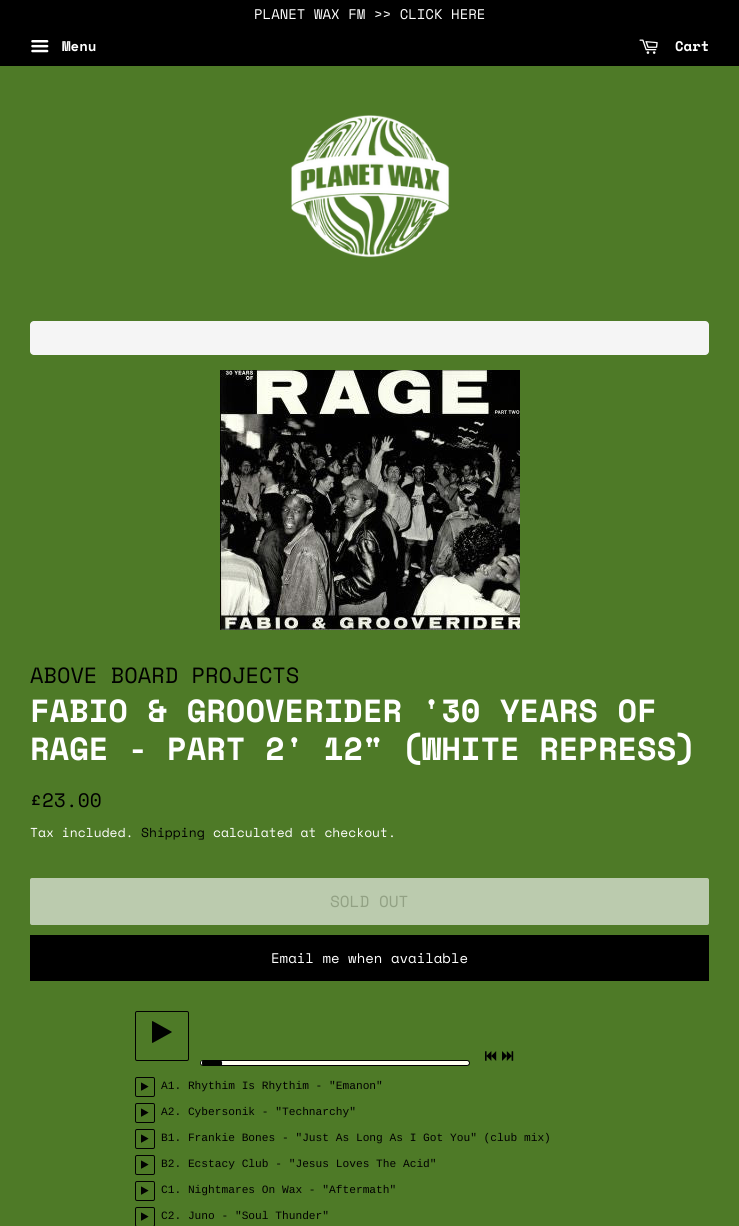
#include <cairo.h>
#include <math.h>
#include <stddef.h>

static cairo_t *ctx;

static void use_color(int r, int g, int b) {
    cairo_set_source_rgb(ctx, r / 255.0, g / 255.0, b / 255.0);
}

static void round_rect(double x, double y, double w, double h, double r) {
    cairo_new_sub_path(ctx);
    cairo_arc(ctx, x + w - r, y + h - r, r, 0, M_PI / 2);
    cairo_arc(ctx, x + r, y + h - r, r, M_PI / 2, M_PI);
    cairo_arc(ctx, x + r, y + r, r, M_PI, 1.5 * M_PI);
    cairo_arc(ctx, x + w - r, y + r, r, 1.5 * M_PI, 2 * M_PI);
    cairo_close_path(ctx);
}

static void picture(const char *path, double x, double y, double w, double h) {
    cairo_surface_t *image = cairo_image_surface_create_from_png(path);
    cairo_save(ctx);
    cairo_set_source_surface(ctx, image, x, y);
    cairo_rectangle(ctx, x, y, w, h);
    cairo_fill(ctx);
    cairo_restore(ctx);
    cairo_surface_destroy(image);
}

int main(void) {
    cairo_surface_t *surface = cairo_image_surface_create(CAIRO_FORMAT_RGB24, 739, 1226);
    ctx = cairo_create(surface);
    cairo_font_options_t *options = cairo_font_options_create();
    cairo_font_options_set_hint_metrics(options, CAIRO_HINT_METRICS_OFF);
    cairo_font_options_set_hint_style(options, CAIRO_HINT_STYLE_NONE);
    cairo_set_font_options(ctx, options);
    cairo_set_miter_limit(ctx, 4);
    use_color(78, 122, 39);
    cairo_paint(ctx);
    use_color(0, 0, 0);
    cairo_rectangle(ctx, 0, 0, 739, 66);
    cairo_fill(ctx);
    cairo_select_font_face(ctx, "Space Mono", CAIRO_FONT_SLANT_NORMAL, CAIRO_FONT_WEIGHT_NORMAL);
    cairo_set_font_size(ctx, 14);
    use_color(255, 255, 255);
    cairo_move_to(ctx, 254, 19);
    cairo_show_text(ctx, "PLANET WAX FM >> CLICK HERE");
    picture("img1.png", 31, 40, 18, 13);
    cairo_select_font_face(ctx, "Space Mono", CAIRO_FONT_SLANT_NORMAL, CAIRO_FONT_WEIGHT_BOLD);
    cairo_move_to(ctx, 62, 51);
    cairo_show_text(ctx, "Menu");
    picture("img2.png", 639, 39, 19, 15);
    cairo_move_to(ctx, 675, 51);
    cairo_show_text(ctx, "Cart");
    picture("img3.png", 291, 115, 159, 143);
    use_color(245, 245, 245);
    round_rect(30, 321, 679, 34, 4);
    cairo_fill(ctx);
    picture("img4.png", 220, 370, 300, 260);
    cairo_select_font_face(ctx, "Space Mono", CAIRO_FONT_SLANT_NORMAL, CAIRO_FONT_WEIGHT_NORMAL);
    cairo_set_font_size(ctx, 22);
    use_color(0, 0, 0);
    cairo_move_to(ctx, 30, 683);
    cairo_show_text(ctx, "ABOVE BOARD PROJECTS");
    cairo_select_font_face(ctx, "Space Mono", CAIRO_FONT_SLANT_NORMAL, CAIRO_FONT_WEIGHT_BOLD);
    cairo_set_font_size(ctx, 32);
    use_color(255, 255, 255);
    cairo_move_to(ctx, 30, 722);
    cairo_show_text(ctx, "FABIO & GROOVERIDER '30 YEARS OF");
    cairo_move_to(ctx, 30, 760);
    cairo_show_text(ctx, "RAGE - PART 2' 12\" (WHITE REPRESS)");
    cairo_select_font_face(ctx, "Space Mono", CAIRO_FONT_SLANT_NORMAL, CAIRO_FONT_WEIGHT_NORMAL);
    cairo_set_font_size(ctx, 19.5);
    use_color(0, 0, 0);
    cairo_move_to(ctx, 30, 807);
    cairo_show_text(ctx, "£23.00");
    cairo_set_font_size(ctx, 13);
    use_color(255, 255, 255);
    cairo_move_to(ctx, 30, 837);
    cairo_show_text(ctx, "Tax included.");
    use_color(0, 0, 0);
    cairo_move_to(ctx, 141, 837);
    cairo_show_text(ctx, "Shipping");
    use_color(255, 255, 255);
    cairo_move_to(ctx, 213, 837);
    cairo_show_text(ctx, "calculated at checkout.");
    use_color(187, 203, 174);
    round_rect(30, 878, 679, 47, 2);
    cairo_fill(ctx);
    cairo_set_font_size(ctx, 16);
    use_color(146, 161, 132);
    cairo_move_to(ctx, 330, 907);
    cairo_show_text(ctx, "SOLD OUT");
    use_color(0, 0, 0);
    cairo_rectangle(ctx, 30, 935, 679, 46);
    cairo_fill(ctx);
    cairo_set_font_size(ctx, 14);
    use_color(255, 255, 255);
    cairo_move_to(ctx, 271, 963);
    cairo_show_text(ctx, "Email me when available");
    round_rect(135.5, 1011.5, 53, 49, 1.5);
    use_color(1, 1, 1);
    cairo_set_line_width(ctx, 1);
    cairo_stroke(ctx);
    picture("img5.png", 152, 1021, 20, 22);
    picture("img6.png", 485, 1051, 12, 10);
    picture("img7.png", 502, 1051, 12, 10);
    use_color(255, 255, 241);
    round_rect(200.5, 1060.5, 269, 5, 2.5);
    cairo_fill_preserve(ctx);
    use_color(1, 1, 1);
    cairo_stroke(ctx);
    cairo_save(ctx);
    round_rect(201, 1061, 268, 4, 2);
    cairo_clip(ctx);
    round_rect(201, 1059, 22, 10, 3);
    cairo_fill(ctx);
    cairo_restore(ctx);
    use_color(255, 255, 255);
    cairo_set_fill_rule(ctx, CAIRO_FILL_RULE_EVEN_ODD);
    cairo_new_path(ctx);
    cairo_move_to(ctx, 223, 1061);
    cairo_line_to(ctx, 223, 1065);
    cairo_line_to(ctx, 222, 1065);
    cairo_curve_to(ctx, 222, 1064, 222.5, 1062, 221.5, 1061);
    cairo_close_path(ctx);
    cairo_move_to(ctx, 202, 1061);
    cairo_curve_to(ctx, 200.5, 1062, 200.5, 1064, 202, 1064.5);
    cairo_close_path(ctx);
    cairo_fill(ctx);
    round_rect(135.5, 1077.5, 19, 19, 1.5);
    use_color(1, 1, 1);
    cairo_stroke(ctx);
    picture("img8.png", 141, 1082, 8, 9);
    cairo_select_font_face(ctx, "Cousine", CAIRO_FONT_SLANT_NORMAL, CAIRO_FONT_WEIGHT_NORMAL);
    cairo_set_font_size(ctx, 11.2);
    use_color(0, 0, 0);
    cairo_move_to(ctx, 161, 1089);
    cairo_show_text(ctx, "A1. Rhythim Is Rhythim - \"Emanon\"");
    round_rect(135.5, 1103.5, 19, 19, 1.5);
    use_color(1, 1, 1);
    cairo_stroke(ctx);
    picture("img8.png", 141, 1108, 8, 9);
    use_color(0, 0, 0);
    cairo_move_to(ctx, 161, 1115);
    cairo_show_text(ctx, "A2. Cybersonik - \"Technarchy\"");
    round_rect(135.5, 1129.5, 19, 19, 1.5);
    use_color(1, 1, 1);
    cairo_stroke(ctx);
    picture("img8.png", 141, 1134, 8, 9);
    use_color(0, 0, 0);
    cairo_move_to(ctx, 161, 1141);
    cairo_show_text(ctx, "B1. Frankie Bones - \"Just As Long As I Got You\" (club mix)");
    round_rect(135.5, 1155.5, 19, 19, 1.5);
    use_color(1, 1, 1);
    cairo_stroke(ctx);
    picture("img8.png", 141, 1160, 8, 9);
    use_color(0, 0, 0);
    cairo_move_to(ctx, 161, 1167);
    cairo_show_text(ctx, "B2. Ecstacy Club - \"Jesus Loves The Acid\"");
    round_rect(135.5, 1181.5, 19, 19, 1.5);
    use_color(1, 1, 1);
    cairo_stroke(ctx);
    picture("img8.png", 141, 1186, 8, 9);
    use_color(0, 0, 0);
    cairo_move_to(ctx, 161, 1193);
    cairo_show_text(ctx, "C1. Nightmares On Wax - \"Aftermath\"");
    round_rect(135.5, 1207.5, 19, 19, 1.5);
    use_color(1, 1, 1);
    cairo_stroke(ctx);
    picture("img8.png", 141, 1212, 8, 9);
    use_color(0, 0, 0);
    cairo_move_to(ctx, 161, 1219);
    cairo_show_text(ctx, "C2. Juno - \"Soul Thunder\"");
    cairo_surface_write_to_png(surface, "result.png");
    cairo_font_options_destroy(options);
    cairo_destroy(ctx);
    cairo_surface_destroy(surface);
    return 0;
}
